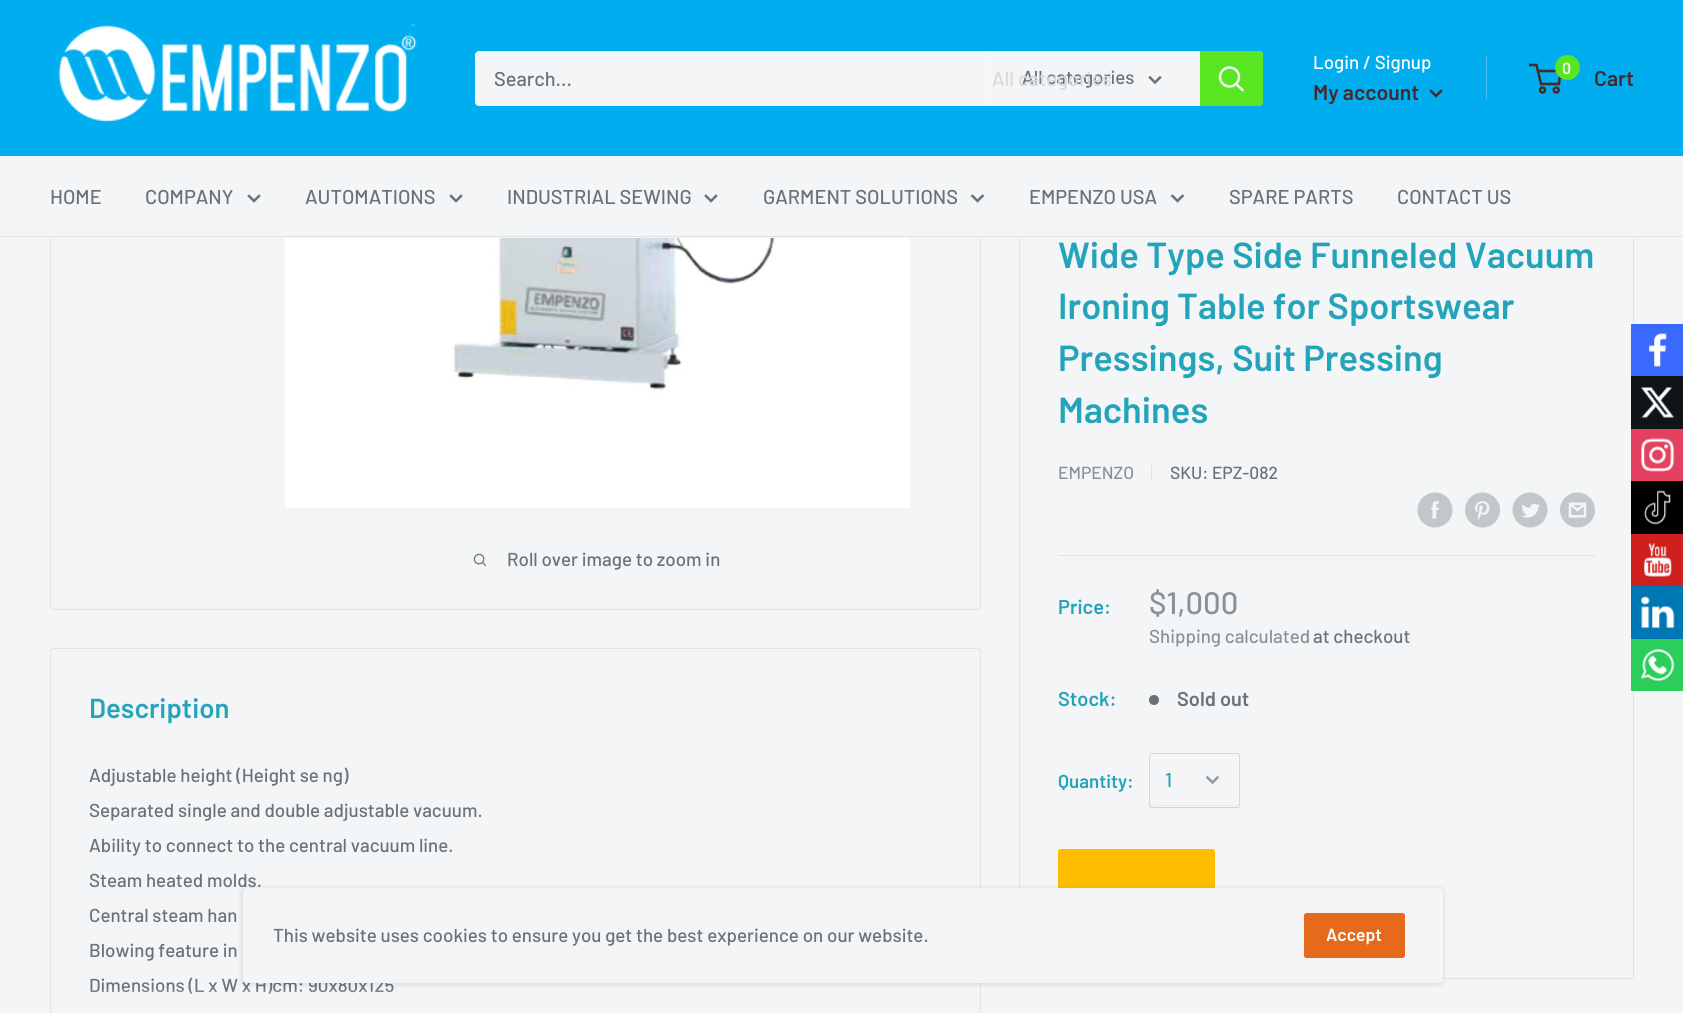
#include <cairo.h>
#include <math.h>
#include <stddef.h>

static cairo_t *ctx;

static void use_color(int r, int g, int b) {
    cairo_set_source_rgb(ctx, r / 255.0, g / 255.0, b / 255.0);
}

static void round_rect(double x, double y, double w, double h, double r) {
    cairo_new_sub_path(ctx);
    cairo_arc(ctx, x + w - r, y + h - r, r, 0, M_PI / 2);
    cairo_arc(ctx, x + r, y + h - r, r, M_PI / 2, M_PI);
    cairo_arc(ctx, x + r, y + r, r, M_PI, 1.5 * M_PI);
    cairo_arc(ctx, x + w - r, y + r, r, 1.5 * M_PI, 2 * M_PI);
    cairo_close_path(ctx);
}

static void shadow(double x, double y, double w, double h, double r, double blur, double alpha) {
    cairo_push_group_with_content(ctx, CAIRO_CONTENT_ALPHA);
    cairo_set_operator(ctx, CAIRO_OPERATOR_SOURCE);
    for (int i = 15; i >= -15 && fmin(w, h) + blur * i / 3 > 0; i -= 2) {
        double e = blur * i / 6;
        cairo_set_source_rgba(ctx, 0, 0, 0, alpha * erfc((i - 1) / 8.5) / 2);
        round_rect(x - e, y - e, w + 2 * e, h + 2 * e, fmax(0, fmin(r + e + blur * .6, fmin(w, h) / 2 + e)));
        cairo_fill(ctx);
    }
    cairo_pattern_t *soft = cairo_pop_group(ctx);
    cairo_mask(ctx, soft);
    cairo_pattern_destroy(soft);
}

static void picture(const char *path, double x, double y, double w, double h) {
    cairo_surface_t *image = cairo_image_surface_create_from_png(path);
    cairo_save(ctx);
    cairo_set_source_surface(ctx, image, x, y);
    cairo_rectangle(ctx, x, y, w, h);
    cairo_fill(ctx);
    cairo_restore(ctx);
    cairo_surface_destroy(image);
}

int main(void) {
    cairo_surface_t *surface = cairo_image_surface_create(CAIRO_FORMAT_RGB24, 1683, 1013);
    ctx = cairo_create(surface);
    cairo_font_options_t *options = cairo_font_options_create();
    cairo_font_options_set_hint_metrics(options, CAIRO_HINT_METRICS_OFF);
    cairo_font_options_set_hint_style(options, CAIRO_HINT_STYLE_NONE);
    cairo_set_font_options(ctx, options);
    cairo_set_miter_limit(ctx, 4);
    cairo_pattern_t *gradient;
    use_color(243, 245, 246);
    cairo_paint(ctx);
    round_rect(50.5, -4.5, 930, 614, 3.5);
    use_color(225, 227, 228);
    cairo_set_line_width(ctx, 1);
    cairo_stroke(ctx);
    use_color(0, 174, 239);
    cairo_rectangle(ctx, 0, 0, 1683, 156);
    cairo_fill(ctx);
    picture("img1.png", 58, 24, 359, 98);
    use_color(243, 245, 246);
    round_rect(475, 51, 788, 55, 4);
    cairo_fill(ctx);
    cairo_select_font_face(ctx, "Barlow Medium", CAIRO_FONT_SLANT_NORMAL, CAIRO_FONT_WEIGHT_NORMAL);
    cairo_set_font_size(ctx, 20);
    use_color(103, 114, 121);
    cairo_move_to(ctx, 494, 86);
    cairo_show_text(ctx, "Search...");
    use_color(247, 248, 249);
    cairo_rectangle(ctx, 989, 51, 1, 55);
    cairo_fill(ctx);
    cairo_set_font_size(ctx, 18.75);
    use_color(103, 114, 121);
    cairo_move_to(ctx, 1022, 84);
    cairo_show_text(ctx, "All categories");
    cairo_new_path(ctx);
    cairo_move_to(ctx, 1160, 77.5);
    cairo_line_to(ctx, 1155, 82.5);
    cairo_line_to(ctx, 1150, 77.5);
    cairo_set_line_width(ctx, 2.5);
    cairo_set_line_cap(ctx, CAIRO_LINE_CAP_SQUARE);
    cairo_stroke(ctx);
    cairo_set_font_size(ctx, 20);
    use_color(213, 217, 219);
    cairo_move_to(ctx, 992, 86);
    cairo_show_text(ctx, "All categories");
    use_color(89, 229, 33);
    cairo_new_path(ctx);
    cairo_move_to(ctx, 1200, 51);
    cairo_line_to(ctx, 1259, 51);
    cairo_curve_to(ctx, 1261, 51, 1263, 53, 1263, 55);
    cairo_line_to(ctx, 1263, 102);
    cairo_curve_to(ctx, 1263, 104, 1261, 106, 1259, 106);
    cairo_line_to(ctx, 1200, 106);
    cairo_close_path(ctx);
    cairo_fill(ctx);
    cairo_new_path(ctx);
    cairo_move_to(ctx, 1242.5, 90);
    cairo_line_to(ctx, 1236, 84);
    use_color(243, 245, 246);
    cairo_stroke(ctx);
    cairo_arc(ctx, 1229.5, 77, 9.5, 0, 2 * M_PI);
    cairo_set_line_cap(ctx, CAIRO_LINE_CAP_BUTT);
    cairo_stroke(ctx);
    cairo_set_font_size(ctx, 18.75);
    use_color(255, 255, 255);
    cairo_move_to(ctx, 1313, 69);
    cairo_show_text(ctx, "Login / Signup");
    use_color(77, 198, 244);
    cairo_rectangle(ctx, 1486, 56, 1, 43);
    cairo_fill(ctx);
    cairo_select_font_face(ctx, "Barlow SemiBold", CAIRO_FONT_SLANT_NORMAL, CAIRO_FONT_WEIGHT_NORMAL);
    cairo_set_font_size(ctx, 21.25);
    use_color(68, 42, 42);
    cairo_move_to(ctx, 1313, 100);
    cairo_show_text(ctx, "My account");
    cairo_new_path(ctx);
    cairo_move_to(ctx, 1441, 91);
    cairo_line_to(ctx, 1436, 96);
    cairo_line_to(ctx, 1431, 91);
    cairo_set_line_cap(ctx, CAIRO_LINE_CAP_SQUARE);
    cairo_stroke(ctx);
    cairo_arc(ctx, 1542.5, 90, 2.5, 0, 2 * M_PI);
    cairo_set_line_cap(ctx, CAIRO_LINE_CAP_BUTT);
    cairo_stroke(ctx);
    cairo_arc(ctx, 1556.2, 90, 2.5, 0, 2 * M_PI);
    cairo_stroke(ctx);
    cairo_new_path(ctx);
    cairo_move_to(ctx, 1538, 71);
    cairo_line_to(ctx, 1560.5, 71);
    cairo_line_to(ctx, 1559, 84);
    cairo_line_to(ctx, 1541, 84);
    cairo_line_to(ctx, 1536.5, 65);
    cairo_line_to(ctx, 1529, 65);
    cairo_stroke(ctx);
    use_color(89, 229, 33);
    cairo_arc(ctx, 1567.5, 67.5, 12.5, 0, 2 * M_PI);
    cairo_fill(ctx);
    cairo_set_font_size(ctx, 16);
    use_color(243, 245, 246);
    cairo_move_to(ctx, 1562, 74);
    cairo_show_text(ctx, "0");
    cairo_set_font_size(ctx, 21.25);
    use_color(68, 42, 42);
    cairo_move_to(ctx, 1594, 86);
    cairo_show_text(ctx, "Cart");
    round_rect(1019.5, 203.5, 614, 775, 3.5);
    use_color(225, 227, 228);
    cairo_set_line_width(ctx, 1);
    cairo_stroke(ctx);
    use_color(243, 245, 246);
    cairo_rectangle(ctx, 50, 156, 1584, 82);
    cairo_fill(ctx);
    use_color(225, 227, 228);
    cairo_rectangle(ctx, 0, 236, 1683, 1);
    cairo_fill(ctx);
    cairo_select_font_face(ctx, "Barlow Medium", CAIRO_FONT_SLANT_NORMAL, CAIRO_FONT_WEIGHT_NORMAL);
    cairo_set_font_size(ctx, 20);
    use_color(103, 114, 121);
    cairo_move_to(ctx, 50, 204);
    cairo_show_text(ctx, "HOME");
    cairo_move_to(ctx, 145, 204);
    cairo_show_text(ctx, "COMPANY");
    cairo_new_path(ctx);
    cairo_move_to(ctx, 259, 196);
    cairo_line_to(ctx, 254, 201);
    cairo_line_to(ctx, 249, 196);
    cairo_set_line_width(ctx, 2.5);
    cairo_set_line_cap(ctx, CAIRO_LINE_CAP_SQUARE);
    cairo_stroke(ctx);
    cairo_move_to(ctx, 305, 204);
    cairo_show_text(ctx, "AUTOMATIONS");
    cairo_new_path(ctx);
    cairo_move_to(ctx, 461, 196);
    cairo_line_to(ctx, 456, 201);
    cairo_line_to(ctx, 451, 196);
    cairo_stroke(ctx);
    cairo_move_to(ctx, 507, 204);
    cairo_show_text(ctx, "INDUSTRIAL SEWING");
    cairo_new_path(ctx);
    cairo_move_to(ctx, 716, 196);
    cairo_line_to(ctx, 711, 201);
    cairo_line_to(ctx, 706, 196);
    cairo_stroke(ctx);
    cairo_move_to(ctx, 763, 204);
    cairo_show_text(ctx, "GARMENT SOLUTIONS");
    cairo_new_path(ctx);
    cairo_move_to(ctx, 982.5, 196);
    cairo_line_to(ctx, 977.5, 201);
    cairo_line_to(ctx, 972.5, 196);
    cairo_stroke(ctx);
    cairo_move_to(ctx, 1029, 204);
    cairo_show_text(ctx, "EMPENZO USA");
    cairo_new_path(ctx);
    cairo_move_to(ctx, 1182.5, 196);
    cairo_line_to(ctx, 1177.5, 201);
    cairo_line_to(ctx, 1172.5, 196);
    cairo_stroke(ctx);
    cairo_move_to(ctx, 1229, 204);
    cairo_show_text(ctx, "SPARE PARTS");
    cairo_move_to(ctx, 1397, 204);
    cairo_show_text(ctx, "CONTACT US");
    picture("img2.png", 285, 238, 625, 270);
    picture("img3.png", 473, 553, 14, 14);
    cairo_set_font_size(ctx, 18.75);
    cairo_move_to(ctx, 507, 566);
    cairo_show_text(ctx, "Roll over image to zoom in");
    cairo_select_font_face(ctx, "Barlow SemiBold", CAIRO_FONT_SLANT_NORMAL, CAIRO_FONT_WEIGHT_NORMAL);
    cairo_set_font_size(ctx, 36.25);
    use_color(36, 164, 187);
    cairo_move_to(ctx, 1058, 268);
    cairo_show_text(ctx, "Wide Type Side Funneled Vacuum");
    cairo_move_to(ctx, 1058, 319);
    cairo_show_text(ctx, "Ironing Table for Sportswear");
    cairo_move_to(ctx, 1058, 371);
    cairo_show_text(ctx, "Pressings, Suit Pressing");
    cairo_move_to(ctx, 1058, 423);
    cairo_show_text(ctx, "Machines");
    cairo_select_font_face(ctx, "Barlow Medium", CAIRO_FONT_SLANT_NORMAL, CAIRO_FONT_WEIGHT_NORMAL);
    cairo_set_font_size(ctx, 17.5);
    use_color(138, 146, 151);
    cairo_move_to(ctx, 1058, 479);
    cairo_show_text(ctx, "EMPENZO");
    use_color(225, 227, 228);
    cairo_rectangle(ctx, 1151, 465, 1, 16);
    cairo_fill(ctx);
    use_color(103, 114, 121);
    cairo_move_to(ctx, 1170, 479);
    cairo_show_text(ctx, "SKU: EPZ-082");
    picture("img4.png", 1417, 492, 36, 36);
    picture("img5.png", 1465, 492, 35, 36);
    picture("img6.png", 1512, 492, 36, 36);
    picture("img7.png", 1560, 492, 35, 36);
    use_color(225, 227, 228);
    cairo_rectangle(ctx, 1058, 555, 537, 1);
    cairo_fill(ctx);
    cairo_select_font_face(ctx, "Barlow SemiBold", CAIRO_FONT_SLANT_NORMAL, CAIRO_FONT_WEIGHT_NORMAL);
    cairo_set_font_size(ctx, 20);
    use_color(36, 164, 187);
    cairo_move_to(ctx, 1058, 614);
    cairo_show_text(ctx, "Price:");
    cairo_select_font_face(ctx, "Barlow Medium", CAIRO_FONT_SLANT_NORMAL, CAIRO_FONT_WEIGHT_NORMAL);
    cairo_set_font_size(ctx, 31);
    use_color(138, 146, 151);
    cairo_move_to(ctx, 1149, 614);
    cairo_show_text(ctx, "$1,000");
    cairo_set_font_size(ctx, 18.75);
    cairo_move_to(ctx, 1149, 643);
    cairo_show_text(ctx, "Shipping calculated");
    use_color(103, 114, 121);
    cairo_move_to(ctx, 1313, 643);
    cairo_show_text(ctx, "at checkout");
    cairo_select_font_face(ctx, "Barlow SemiBold", CAIRO_FONT_SLANT_NORMAL, CAIRO_FONT_WEIGHT_NORMAL);
    cairo_set_font_size(ctx, 20);
    use_color(36, 164, 187);
    cairo_move_to(ctx, 1058, 706);
    cairo_show_text(ctx, "Stock:");
    use_color(103, 114, 121);
    cairo_new_path(ctx);
    cairo_arc(ctx, 1154, 700, 5, 0, 2 * M_PI);
    cairo_fill(ctx);
    cairo_move_to(ctx, 1177, 706);
    cairo_show_text(ctx, "Sold out");
    cairo_set_font_size(ctx, 18.75);
    use_color(36, 164, 187);
    cairo_move_to(ctx, 1058, 788);
    cairo_show_text(ctx, "Quantity:");
    use_color(234, 236, 237);
    cairo_new_path(ctx);
    cairo_move_to(ctx, 1150, 804);
    cairo_curve_to(ctx, 1150, 805, 1150, 806, 1151, 806);
    cairo_line_to(ctx, 1238, 806);
    cairo_curve_to(ctx, 1239, 806, 1239, 805, 1239, 804);
    cairo_line_to(ctx, 1238, 805);
    cairo_line_to(ctx, 1157, 805);
    cairo_curve_to(ctx, 1155, 805, 1151, 806, 1150, 804);
    cairo_close_path(ctx);
    cairo_fill(ctx);
    round_rect(1149.5, 753.5, 90, 54, 2);
    use_color(212, 214, 216);
    cairo_set_line_width(ctx, 1);
    cairo_set_line_cap(ctx, CAIRO_LINE_CAP_BUTT);
    cairo_stroke(ctx);
    cairo_select_font_face(ctx, "Barlow Medium", CAIRO_FONT_SLANT_NORMAL, CAIRO_FONT_WEIGHT_NORMAL);
    cairo_set_font_size(ctx, 20);
    use_color(36, 164, 187);
    cairo_move_to(ctx, 1165, 787);
    cairo_show_text(ctx, "1");
    cairo_new_path(ctx);
    cairo_move_to(ctx, 1217.5, 777.5);
    cairo_line_to(ctx, 1212.5, 782.5);
    cairo_line_to(ctx, 1207.5, 777.5);
    use_color(145, 153, 159);
    cairo_set_line_width(ctx, 2.5);
    cairo_set_line_cap(ctx, CAIRO_LINE_CAP_SQUARE);
    cairo_stroke(ctx);
    use_color(255, 189, 0);
    round_rect(1058, 849, 157, 85, 2.5);
    cairo_fill(ctx);
    round_rect(50.5, 648.5, 930, 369, 3.5);
    use_color(225, 227, 228);
    cairo_set_line_width(ctx, 1);
    cairo_set_line_cap(ctx, CAIRO_LINE_CAP_BUTT);
    cairo_stroke(ctx);
    cairo_select_font_face(ctx, "Barlow SemiBold", CAIRO_FONT_SLANT_NORMAL, CAIRO_FONT_WEIGHT_NORMAL);
    cairo_set_font_size(ctx, 27.5);
    use_color(36, 164, 187);
    cairo_move_to(ctx, 89, 718);
    cairo_show_text(ctx, "Description");
    cairo_select_font_face(ctx, "Barlow Medium", CAIRO_FONT_SLANT_NORMAL, CAIRO_FONT_WEIGHT_NORMAL);
    cairo_set_font_size(ctx, 18.75);
    use_color(103, 114, 121);
    cairo_move_to(ctx, 89, 782);
    cairo_show_text(ctx, "Adjustable height (Height se ng)");
    cairo_move_to(ctx, 89, 817);
    cairo_show_text(ctx, "Separated single and double adjustable vacuum.");
    cairo_move_to(ctx, 89, 852);
    cairo_show_text(ctx, "Ability to connect to the central vacuum line.");
    cairo_move_to(ctx, 89, 887);
    cairo_show_text(ctx, "Steam heated molds.");
    cairo_move_to(ctx, 89, 922);
    cairo_show_text(ctx, "Central steam han");
    cairo_move_to(ctx, 89, 957);
    cairo_show_text(ctx, "Blowing feature in");
    cairo_move_to(ctx, 89, 992);
    cairo_show_text(ctx, "Dimensions (L x W x H)cm: 90x80x125");
    gradient = cairo_pattern_create_linear(516, 988, 516, 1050);
    cairo_pattern_add_color_stop_rgba(gradient, 0, 0.953, 0.961, 0.965, 0);
    cairo_pattern_add_color_stop_rgba(gradient, 0.15, 0.953, 0.961, 0.965, 0.4);
    cairo_pattern_add_color_stop_rgba(gradient, 1, 0.953, 0.961, 0.965, 1);
    cairo_set_source(ctx, gradient);
    cairo_pattern_destroy(gradient);
    cairo_rectangle(ctx, 90, 989, 303, 5);
    cairo_fill(ctx);
    use_color(57, 105, 253);
    cairo_rectangle(ctx, 1631, 324, 52, 52);
    cairo_fill(ctx);
    picture("img8.png", 1648, 333, 19, 34);
    use_color(16, 20, 25);
    cairo_rectangle(ctx, 1631, 376, 52, 53);
    cairo_fill(ctx);
    picture("img9.png", 1641, 387, 34, 31);
    use_color(228, 64, 95);
    cairo_rectangle(ctx, 1631, 429, 52, 52);
    cairo_fill(ctx);
    picture("img10.png", 1641, 438, 34, 34);
    use_color(0, 0, 0);
    cairo_rectangle(ctx, 1631, 481, 52, 53);
    cairo_fill(ctx);
    picture("img11.png", 1644, 490, 27, 35);
    use_color(205, 32, 31);
    cairo_rectangle(ctx, 1631, 534, 52, 52);
    cairo_fill(ctx);
    picture("img12.png", 1644, 543, 28, 34);
    use_color(0, 119, 181);
    cairo_rectangle(ctx, 1631, 586, 52, 53);
    cairo_fill(ctx);
    picture("img13.png", 1641, 596, 34, 33);
    use_color(43, 206, 91);
    cairo_rectangle(ctx, 1631, 639, 52, 52);
    cairo_fill(ctx);
    picture("img14.png", 1641, 649, 34, 32);
    use_color(0, 0, 0);
    shadow(241, 888, 1203, 97, 5, 2.5, 0.1);
    use_color(243, 245, 246);
    round_rect(243, 888, 1200, 95, 4);
    cairo_fill(ctx);
    use_color(103, 114, 121);
    cairo_move_to(ctx, 273, 942);
    cairo_show_text(ctx, "This website uses cookies to ensure you get the best experience on our website.");
    use_color(229, 106, 28);
    round_rect(1304, 913, 101, 45, 2.5);
    cairo_fill(ctx);
    cairo_select_font_face(ctx, "Barlow SemiBold", CAIRO_FONT_SLANT_NORMAL, CAIRO_FONT_WEIGHT_NORMAL);
    cairo_set_font_size(ctx, 17.5);
    use_color(255, 255, 255);
    cairo_move_to(ctx, 1326, 941);
    cairo_show_text(ctx, "Accept");
    cairo_surface_write_to_png(surface, "result.png");
    cairo_font_options_destroy(options);
    cairo_destroy(ctx);
    cairo_surface_destroy(surface);
    return 0;
}
